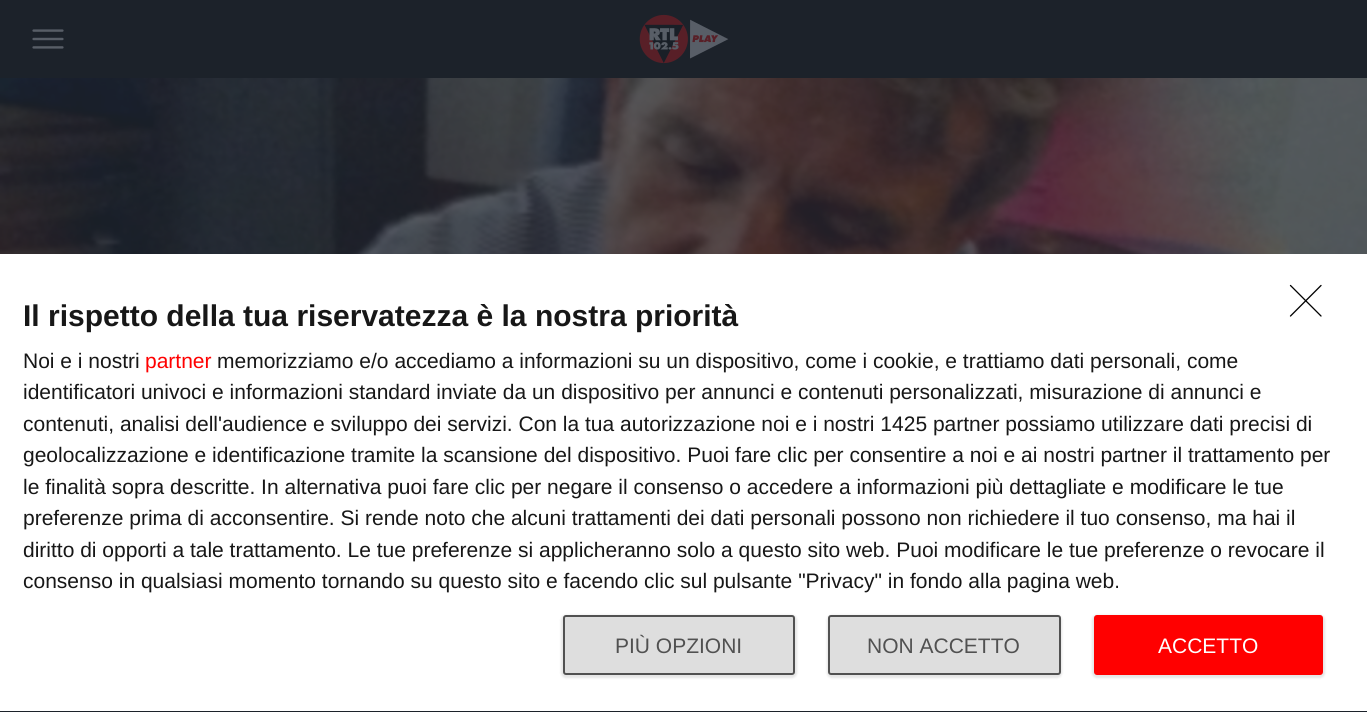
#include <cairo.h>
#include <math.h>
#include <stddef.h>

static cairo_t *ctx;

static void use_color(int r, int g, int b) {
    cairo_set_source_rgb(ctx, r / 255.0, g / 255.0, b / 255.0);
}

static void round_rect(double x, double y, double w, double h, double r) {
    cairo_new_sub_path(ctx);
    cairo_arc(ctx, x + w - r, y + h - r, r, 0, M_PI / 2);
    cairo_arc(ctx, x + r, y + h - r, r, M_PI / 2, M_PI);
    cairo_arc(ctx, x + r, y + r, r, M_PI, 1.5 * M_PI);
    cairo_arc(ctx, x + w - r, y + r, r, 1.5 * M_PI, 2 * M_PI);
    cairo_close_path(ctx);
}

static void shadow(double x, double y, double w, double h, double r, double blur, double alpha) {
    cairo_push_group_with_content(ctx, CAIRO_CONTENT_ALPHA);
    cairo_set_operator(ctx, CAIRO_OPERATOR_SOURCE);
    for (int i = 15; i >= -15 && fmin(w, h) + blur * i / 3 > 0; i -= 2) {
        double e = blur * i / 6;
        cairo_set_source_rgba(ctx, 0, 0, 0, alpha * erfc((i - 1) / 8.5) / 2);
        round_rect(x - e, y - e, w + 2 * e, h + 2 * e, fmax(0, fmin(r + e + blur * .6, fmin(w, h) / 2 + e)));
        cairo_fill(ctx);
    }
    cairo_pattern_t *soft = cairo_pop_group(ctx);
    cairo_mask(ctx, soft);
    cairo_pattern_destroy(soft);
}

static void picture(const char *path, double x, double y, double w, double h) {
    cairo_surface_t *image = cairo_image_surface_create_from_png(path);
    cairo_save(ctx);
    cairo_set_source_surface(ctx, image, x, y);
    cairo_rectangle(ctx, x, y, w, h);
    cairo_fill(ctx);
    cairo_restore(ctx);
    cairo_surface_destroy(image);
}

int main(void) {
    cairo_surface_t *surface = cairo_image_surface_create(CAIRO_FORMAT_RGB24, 1367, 712);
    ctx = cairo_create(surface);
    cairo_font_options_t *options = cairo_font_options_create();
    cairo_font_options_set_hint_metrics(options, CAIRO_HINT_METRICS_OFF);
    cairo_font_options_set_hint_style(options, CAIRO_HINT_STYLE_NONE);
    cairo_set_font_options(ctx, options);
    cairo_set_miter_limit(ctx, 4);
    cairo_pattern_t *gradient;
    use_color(255, 255, 255);
    cairo_paint(ctx);
    gradient = cairo_pattern_create_linear(684, 0, 684, 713);
    cairo_pattern_add_color_stop_rgba(gradient, 0, 0.169, 0.122, 0.153, 1);
    cairo_pattern_add_color_stop_rgba(gradient, 1, 0.11, 0.133, 0.165, 1);
    cairo_set_source(ctx, gradient);
    cairo_pattern_destroy(gradient);
    cairo_rectangle(ctx, 0, 711, 1367, 1);
    cairo_fill(ctx);
    use_color(28, 34, 42);
    cairo_rectangle(ctx, 0, 0, 1367, 78);
    cairo_fill(ctx);
    picture("img1.png", 32, 29, 32, 20);
    picture("img2.png", 639, 14, 90, 50);
    picture("img3.png", 0, 78, 1367, 176);
    cairo_new_path(ctx);
    cairo_move_to(ctx, 1290.5, 285.5);
    cairo_line_to(ctx, 1321, 316);
    cairo_move_to(ctx, 1321, 285.5);
    cairo_line_to(ctx, 1290.5, 316);
    use_color(0, 0, 0);
    cairo_set_line_width(ctx, 1.3);
    cairo_set_line_cap(ctx, CAIRO_LINE_CAP_ROUND);
    cairo_set_line_join(ctx, CAIRO_LINE_JOIN_ROUND);
    cairo_stroke(ctx);
    cairo_select_font_face(ctx, "Liberation Sans", CAIRO_FONT_SLANT_NORMAL, CAIRO_FONT_WEIGHT_BOLD);
    cairo_set_font_size(ctx, 30);
    use_color(23, 23, 23);
    cairo_move_to(ctx, 23, 326);
    cairo_show_text(ctx, "Il rispetto della tua riservatezza è la nostra priorità");
    cairo_select_font_face(ctx, "Liberation Sans", CAIRO_FONT_SLANT_NORMAL, CAIRO_FONT_WEIGHT_NORMAL);
    cairo_set_font_size(ctx, 21);
    cairo_move_to(ctx, 23, 368);
    cairo_show_text(ctx, "Noi e i nostri");
    use_color(255, 0, 0);
    cairo_move_to(ctx, 145, 368);
    cairo_show_text(ctx, "partner");
    use_color(23, 23, 23);
    cairo_move_to(ctx, 217, 368);
    cairo_show_text(ctx, "memorizziamo e/o accediamo a informazioni su un dispositivo, come i cookie, e trattiamo dati personali, come");
    cairo_move_to(ctx, 23, 399);
    cairo_show_text(ctx, "identificatori univoci e informazioni standard inviate da un dispositivo per annunci e contenuti personalizzati, misurazione di annunci e");
    cairo_move_to(ctx, 23, 431);
    cairo_show_text(ctx, "contenuti, analisi dell'audience e sviluppo dei servizi. Con la tua autorizzazione noi e i nostri 1425 partner possiamo utilizzare dati precisi di");
    cairo_move_to(ctx, 23, 462);
    cairo_show_text(ctx, "geolocalizzazione e identificazione tramite la scansione del dispositivo. Puoi fare clic per consentire a noi e ai nostri partner il trattamento per");
    cairo_move_to(ctx, 23, 494);
    cairo_show_text(ctx, "le finalità sopra descritte. In alternativa puoi fare clic per negare il consenso o accedere a informazioni più dettagliate e modificare le tue");
    cairo_move_to(ctx, 23, 525);
    cairo_show_text(ctx, "preferenze prima di acconsentire. Si rende noto che alcuni trattamenti dei dati personali possono non richiedere il tuo consenso, ma hai il");
    cairo_move_to(ctx, 23, 557);
    cairo_show_text(ctx, "diritto di opporti a tale trattamento. Le tue preferenze si applicheranno solo a questo sito web. Puoi modificare le tue preferenze o revocare il");
    cairo_move_to(ctx, 23, 588);
    cairo_show_text(ctx, "consenso in qualsiasi momento tornando su questo sito e facendo clic sul pulsante \"Privacy\" in fondo alla pagina web.");
    use_color(0, 0, 0);
    shadow(561, 615, 236, 63, 5, 1, 0.1);
    use_color(222, 222, 222);
    round_rect(564, 616, 230, 58, 2);
    cairo_fill_preserve(ctx);
    use_color(81, 81, 81);
    cairo_set_line_width(ctx, 2);
    cairo_set_line_cap(ctx, CAIRO_LINE_CAP_BUTT);
    cairo_set_line_join(ctx, CAIRO_LINE_JOIN_MITER);
    cairo_stroke(ctx);
    cairo_move_to(ctx, 615, 653);
    cairo_show_text(ctx, "PIÙ OPZIONI");
    use_color(0, 0, 0);
    shadow(827, 615, 235, 63, 5, 1, 0.1);
    use_color(222, 222, 222);
    round_rect(829, 616, 231, 58, 2);
    cairo_fill_preserve(ctx);
    use_color(81, 81, 81);
    cairo_stroke(ctx);
    cairo_move_to(ctx, 867, 653);
    cairo_show_text(ctx, "NON ACCETTO");
    use_color(0, 0, 0);
    shadow(1092, 615, 233, 63, 5, 1, 0.1);
    use_color(255, 0, 0);
    round_rect(1094, 615, 229, 60, 3);
    cairo_fill(ctx);
    use_color(255, 255, 255);
    cairo_move_to(ctx, 1158, 653);
    cairo_show_text(ctx, "ACCETTO");
    cairo_surface_write_to_png(surface, "result.png");
    cairo_font_options_destroy(options);
    cairo_destroy(ctx);
    cairo_surface_destroy(surface);
    return 0;
}
